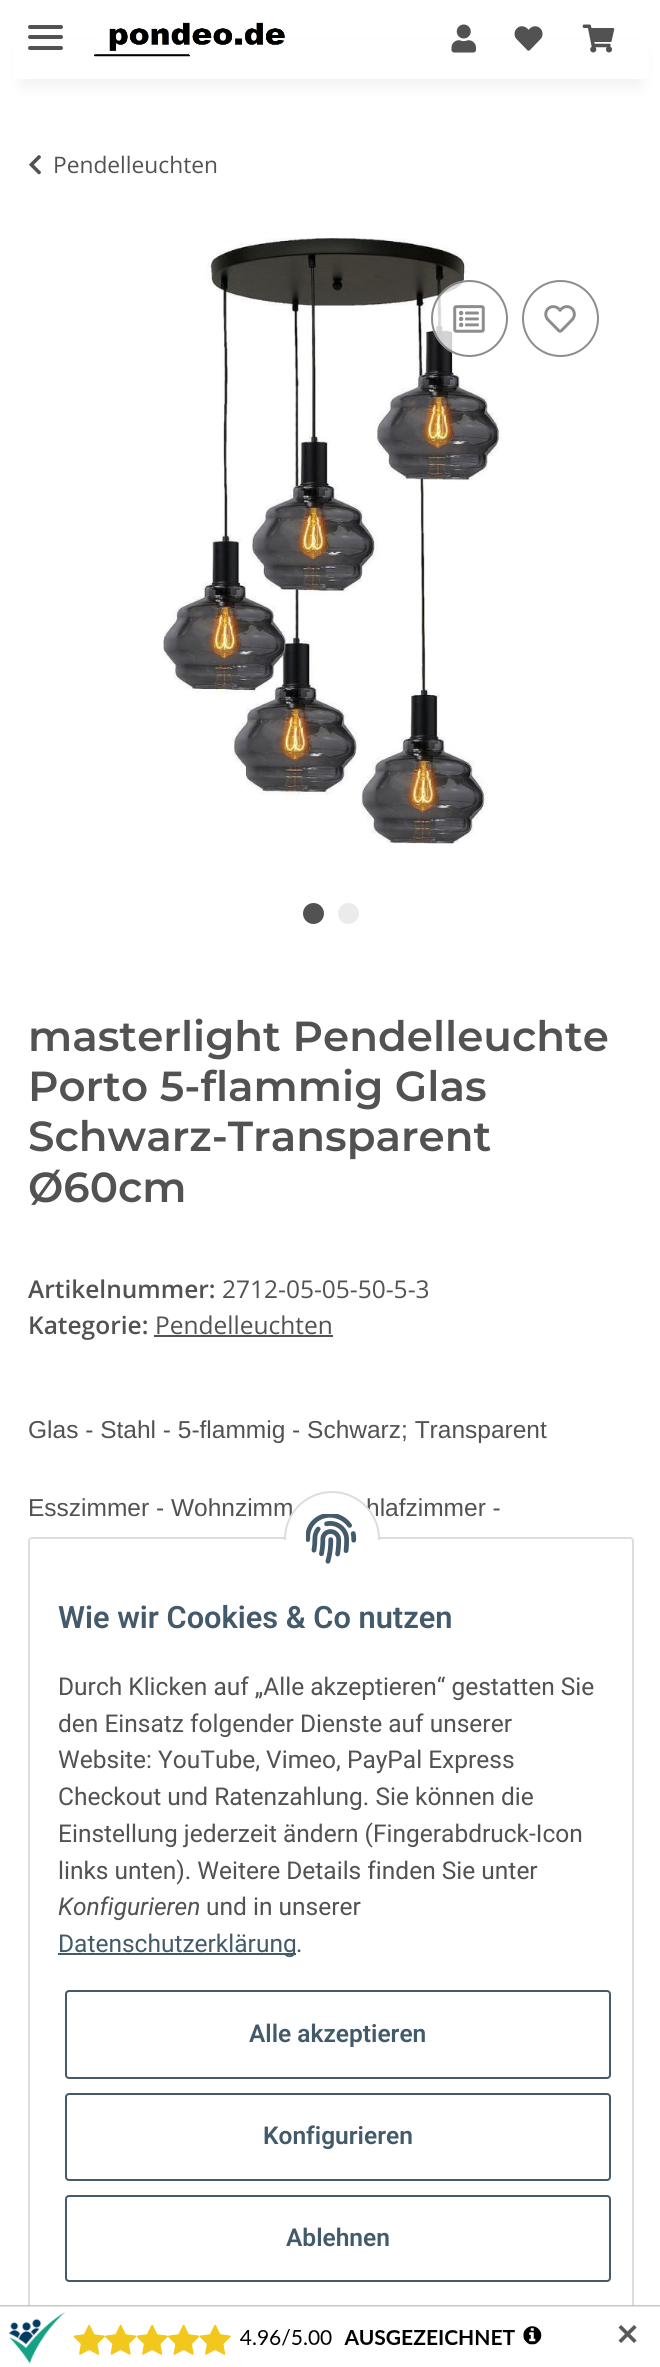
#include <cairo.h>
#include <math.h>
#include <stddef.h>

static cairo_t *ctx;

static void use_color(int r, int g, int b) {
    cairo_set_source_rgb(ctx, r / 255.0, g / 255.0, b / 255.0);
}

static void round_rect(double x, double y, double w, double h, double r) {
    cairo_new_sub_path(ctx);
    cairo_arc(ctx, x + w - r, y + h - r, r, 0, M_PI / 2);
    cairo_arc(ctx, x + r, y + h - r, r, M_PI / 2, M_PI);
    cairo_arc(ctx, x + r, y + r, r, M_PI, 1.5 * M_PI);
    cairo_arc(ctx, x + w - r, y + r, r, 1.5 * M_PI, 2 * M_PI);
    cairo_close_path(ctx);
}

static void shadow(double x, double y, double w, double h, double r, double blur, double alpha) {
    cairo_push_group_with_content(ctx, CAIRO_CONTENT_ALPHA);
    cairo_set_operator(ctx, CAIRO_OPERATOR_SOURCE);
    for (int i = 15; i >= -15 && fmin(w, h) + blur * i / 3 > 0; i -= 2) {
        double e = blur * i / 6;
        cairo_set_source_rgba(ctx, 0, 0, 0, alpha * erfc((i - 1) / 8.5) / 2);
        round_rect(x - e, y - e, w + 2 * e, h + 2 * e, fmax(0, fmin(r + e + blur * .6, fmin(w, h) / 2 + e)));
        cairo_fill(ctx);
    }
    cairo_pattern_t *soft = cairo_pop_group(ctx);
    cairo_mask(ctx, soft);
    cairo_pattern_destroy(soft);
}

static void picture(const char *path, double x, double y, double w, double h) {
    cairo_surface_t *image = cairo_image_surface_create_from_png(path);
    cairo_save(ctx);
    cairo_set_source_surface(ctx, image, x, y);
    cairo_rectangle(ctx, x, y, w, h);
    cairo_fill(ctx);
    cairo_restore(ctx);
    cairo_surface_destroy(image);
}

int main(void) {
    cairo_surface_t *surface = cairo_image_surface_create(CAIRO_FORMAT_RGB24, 660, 2367);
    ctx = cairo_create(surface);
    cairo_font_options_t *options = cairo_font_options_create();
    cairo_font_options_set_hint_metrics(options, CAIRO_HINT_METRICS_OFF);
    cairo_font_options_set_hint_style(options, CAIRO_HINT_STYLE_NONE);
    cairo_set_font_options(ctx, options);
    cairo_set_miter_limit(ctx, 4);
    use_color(255, 255, 255);
    cairo_paint(ctx);
    use_color(0, 0, 0);
    shadow(21, 49, 620, 37, 0, 8, 0.06);
    use_color(255, 255, 255);
    cairo_rectangle(ctx, 13, 41, 636, 38);
    cairo_fill(ctx);
    use_color(82, 82, 82);
    round_rect(28, 35, 35, 4, 2);
    cairo_fill(ctx);
    round_rect(28, 25, 35, 4, 2);
    cairo_fill(ctx);
    round_rect(28, 46, 35, 4, 2);
    cairo_fill(ctx);
    picture("img1.png", 94, 19, 191, 38);
    picture("img2.png", 451, 24, 25, 29);
    picture("img3.png", 514, 26, 29, 25);
    picture("img4.png", 582, 24, 33, 29);
    picture("img5.png", 29, 155, 12, 20);
    cairo_select_font_face(ctx, "Open Sans", CAIRO_FONT_SLANT_NORMAL, CAIRO_FONT_WEIGHT_NORMAL);
    cairo_set_font_size(ctx, 22.75);
    cairo_move_to(ctx, 53, 173);
    cairo_show_text(ctx, "Pendelleuchten");
    picture("img6.png", 163, 238, 339, 606);
    cairo_arc(ctx, 313.5, 913.5, 8.5, 0, 2 * M_PI);
    cairo_fill_preserve(ctx);
    cairo_set_line_width(ctx, 4);
    cairo_stroke(ctx);
    use_color(235, 235, 235);
    cairo_arc(ctx, 348.5, 913.5, 8.5, 0, 2 * M_PI);
    cairo_fill_preserve(ctx);
    cairo_stroke(ctx);
    cairo_set_source_rgba(ctx, 1, 1, 1, 0.8);
    cairo_arc(ctx, 469.5, 318.5, 38.5, 0, 2 * M_PI);
    cairo_fill(ctx);
    cairo_arc(ctx, 469.5, 318.5, 37.5, 0, 2 * M_PI);
    cairo_set_source_rgba(ctx, 0.439, 0.439, 0.439, 0.8);
    cairo_set_line_width(ctx, 2);
    cairo_stroke(ctx);
    picture("img7.png", 453, 305, 32, 28);
    cairo_arc(ctx, 560.5, 318.5, 37.5, 0, 2 * M_PI);
    use_color(141, 141, 141);
    cairo_stroke(ctx);
    picture("img8.png", 544, 305, 32, 28);
    cairo_select_font_face(ctx, "Montserrat SemiBold", CAIRO_FONT_SLANT_NORMAL, CAIRO_FONT_WEIGHT_NORMAL);
    cairo_set_font_size(ctx, 42);
    use_color(82, 82, 82);
    cairo_move_to(ctx, 28, 1051);
    cairo_show_text(ctx, "masterlight Pendelleuchte");
    cairo_move_to(ctx, 28, 1101);
    cairo_show_text(ctx, "Porto 5-flammig Glas");
    cairo_move_to(ctx, 28, 1151);
    cairo_show_text(ctx, "Schwarz-Transparent");
    cairo_move_to(ctx, 28, 1202);
    cairo_show_text(ctx, "Ø60cm");
    cairo_select_font_face(ctx, "Open Sans SemiBold", CAIRO_FONT_SLANT_NORMAL, CAIRO_FONT_WEIGHT_NORMAL);
    cairo_set_font_size(ctx, 24.5);
    cairo_move_to(ctx, 28, 1298);
    cairo_show_text(ctx, "Artikelnummer:");
    cairo_select_font_face(ctx, "Open Sans", CAIRO_FONT_SLANT_NORMAL, CAIRO_FONT_WEIGHT_NORMAL);
    cairo_move_to(ctx, 222, 1298);
    cairo_show_text(ctx, "2712-05-05-50-5-3");
    cairo_select_font_face(ctx, "Open Sans SemiBold", CAIRO_FONT_SLANT_NORMAL, CAIRO_FONT_WEIGHT_NORMAL);
    cairo_move_to(ctx, 28, 1334);
    cairo_show_text(ctx, "Kategorie:");
    cairo_select_font_face(ctx, "Open Sans", CAIRO_FONT_SLANT_NORMAL, CAIRO_FONT_WEIGHT_NORMAL);
    cairo_move_to(ctx, 155, 1334);
    cairo_show_text(ctx, "Pendelleuchten");
    cairo_rectangle(ctx, 154, 1335, 179, 2);
    cairo_fill(ctx);
    cairo_select_font_face(ctx, "Liberation Sans", CAIRO_FONT_SLANT_NORMAL, CAIRO_FONT_WEIGHT_NORMAL);
    cairo_move_to(ctx, 28, 1438);
    cairo_show_text(ctx, "Glas - Stahl - 5-flammig - Schwarz; Transparent");
    cairo_move_to(ctx, 28, 1516);
    cairo_show_text(ctx, "Esszimmer - Wohnzimm");
    cairo_move_to(ctx, 366, 1516);
    cairo_show_text(ctx, "hlafzimmer -");
    round_rect(29, 1538, 604, 773, 3);
    use_color(221, 221, 221);
    cairo_stroke(ctx);
    use_color(255, 255, 255);
    cairo_arc(ctx, 332, 1539, 47, 0, 2 * M_PI);
    cairo_fill_preserve(ctx);
    use_color(221, 221, 221);
    cairo_stroke(ctx);
    use_color(255, 255, 255);
    cairo_rectangle(ctx, 284, 1540, 96, 47);
    cairo_fill(ctx);
    picture("img9.png", 306, 1514, 51, 50);
    cairo_select_font_face(ctx, "Roboto SemiBold", CAIRO_FONT_SLANT_NORMAL, CAIRO_FONT_WEIGHT_NORMAL);
    cairo_set_font_size(ctx, 30.75);
    use_color(67, 90, 107);
    cairo_move_to(ctx, 58, 1628);
    cairo_show_text(ctx, "Wie wir Cookies & Co nutzen");
    cairo_select_font_face(ctx, "Roboto", CAIRO_FONT_SLANT_NORMAL, CAIRO_FONT_WEIGHT_NORMAL);
    cairo_set_font_size(ctx, 24.5);
    use_color(82, 82, 82);
    cairo_move_to(ctx, 58, 1695);
    cairo_show_text(ctx, "Durch Klicken auf „Alle akzeptieren“ gestatten Sie");
    cairo_move_to(ctx, 58, 1732);
    cairo_show_text(ctx, "den Einsatz folgender Dienste auf unserer");
    cairo_move_to(ctx, 58, 1768);
    cairo_show_text(ctx, "Website: YouTube, Vimeo, PayPal Express");
    cairo_move_to(ctx, 58, 1805);
    cairo_show_text(ctx, "Checkout und Ratenzahlung. Sie können die");
    cairo_move_to(ctx, 58, 1842);
    cairo_show_text(ctx, "Einstellung jederzeit ändern (Fingerabdruck-Icon");
    cairo_move_to(ctx, 58, 1879);
    cairo_show_text(ctx, "links unten). Weitere Details finden Sie unter");
    cairo_select_font_face(ctx, "Roboto", CAIRO_FONT_SLANT_ITALIC, CAIRO_FONT_WEIGHT_NORMAL);
    cairo_move_to(ctx, 58, 1915);
    cairo_show_text(ctx, "Konfigurieren");
    cairo_select_font_face(ctx, "Roboto", CAIRO_FONT_SLANT_NORMAL, CAIRO_FONT_WEIGHT_NORMAL);
    cairo_move_to(ctx, 206, 1915);
    cairo_show_text(ctx, "und in unserer");
    use_color(67, 90, 107);
    cairo_rectangle(ctx, 58, 1953, 238, 2);
    cairo_fill(ctx);
    cairo_move_to(ctx, 58, 1952);
    cairo_show_text(ctx, "Datenschutzerklärung");
    use_color(82, 82, 82);
    cairo_move_to(ctx, 296, 1952);
    cairo_show_text(ctx, ".");
    round_rect(66, 1991, 544, 87, 3);
    use_color(67, 90, 107);
    cairo_stroke(ctx);
    cairo_select_font_face(ctx, "Roboto SemiBold", CAIRO_FONT_SLANT_NORMAL, CAIRO_FONT_WEIGHT_NORMAL);
    cairo_move_to(ctx, 249, 2042);
    cairo_show_text(ctx, "Alle akzeptieren");
    round_rect(66, 2094, 544, 86, 3);
    cairo_stroke(ctx);
    cairo_move_to(ctx, 263, 2144);
    cairo_show_text(ctx, "Konfigurieren");
    round_rect(66, 2196, 544, 85, 3);
    cairo_stroke(ctx);
    cairo_move_to(ctx, 286, 2246);
    cairo_show_text(ctx, "Ablehnen");
    picture("img10.png", 0, 2305, 660, 62);
    cairo_select_font_face(ctx, "DejaVu Sans", CAIRO_FONT_SLANT_NORMAL, CAIRO_FONT_WEIGHT_BOLD);
    cairo_set_font_size(ctx, 29);
    use_color(89, 89, 89);
    cairo_move_to(ctx, 615, 2345);
    cairo_show_text(ctx, "✕");
    cairo_surface_write_to_png(surface, "result.png");
    cairo_font_options_destroy(options);
    cairo_destroy(ctx);
    cairo_surface_destroy(surface);
    return 0;
}
